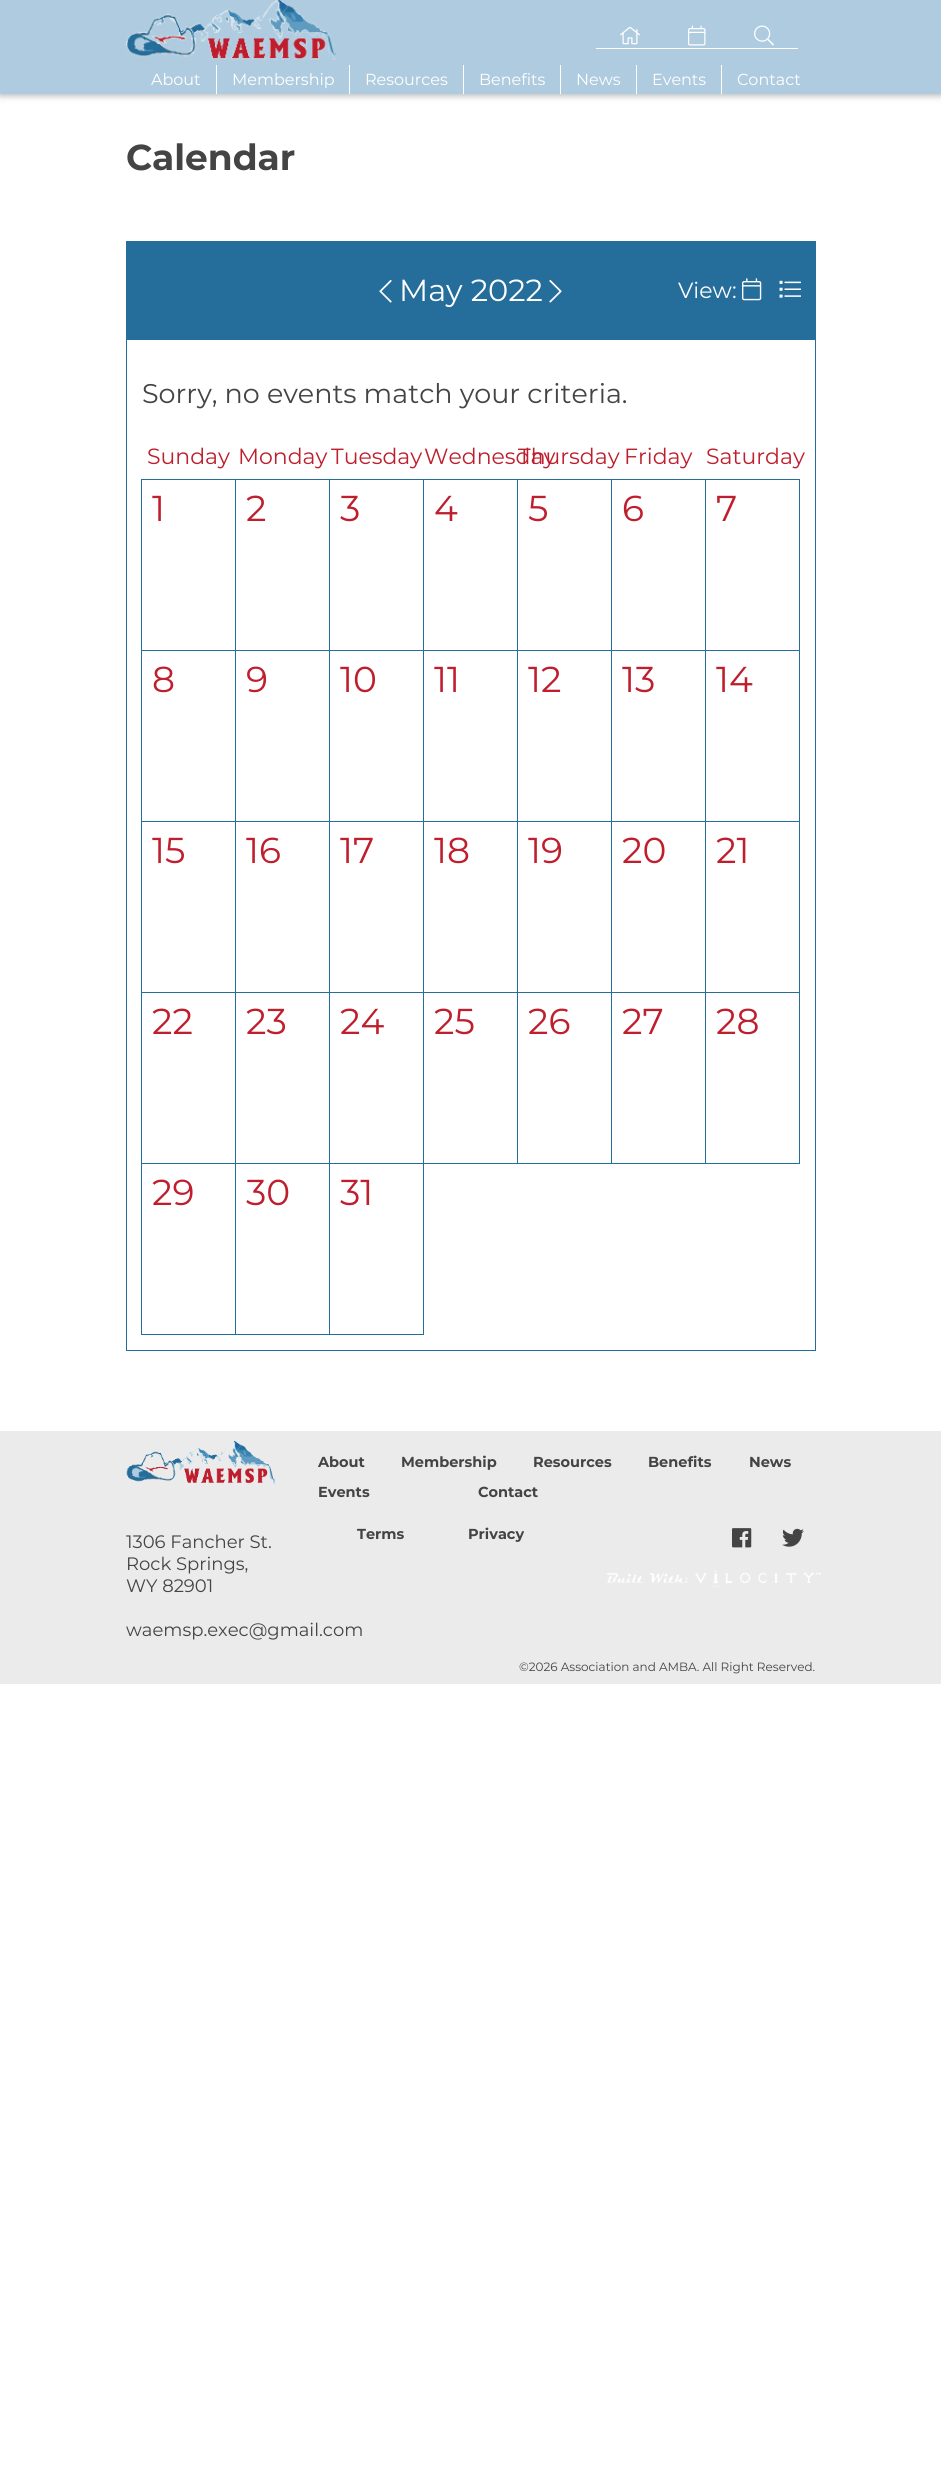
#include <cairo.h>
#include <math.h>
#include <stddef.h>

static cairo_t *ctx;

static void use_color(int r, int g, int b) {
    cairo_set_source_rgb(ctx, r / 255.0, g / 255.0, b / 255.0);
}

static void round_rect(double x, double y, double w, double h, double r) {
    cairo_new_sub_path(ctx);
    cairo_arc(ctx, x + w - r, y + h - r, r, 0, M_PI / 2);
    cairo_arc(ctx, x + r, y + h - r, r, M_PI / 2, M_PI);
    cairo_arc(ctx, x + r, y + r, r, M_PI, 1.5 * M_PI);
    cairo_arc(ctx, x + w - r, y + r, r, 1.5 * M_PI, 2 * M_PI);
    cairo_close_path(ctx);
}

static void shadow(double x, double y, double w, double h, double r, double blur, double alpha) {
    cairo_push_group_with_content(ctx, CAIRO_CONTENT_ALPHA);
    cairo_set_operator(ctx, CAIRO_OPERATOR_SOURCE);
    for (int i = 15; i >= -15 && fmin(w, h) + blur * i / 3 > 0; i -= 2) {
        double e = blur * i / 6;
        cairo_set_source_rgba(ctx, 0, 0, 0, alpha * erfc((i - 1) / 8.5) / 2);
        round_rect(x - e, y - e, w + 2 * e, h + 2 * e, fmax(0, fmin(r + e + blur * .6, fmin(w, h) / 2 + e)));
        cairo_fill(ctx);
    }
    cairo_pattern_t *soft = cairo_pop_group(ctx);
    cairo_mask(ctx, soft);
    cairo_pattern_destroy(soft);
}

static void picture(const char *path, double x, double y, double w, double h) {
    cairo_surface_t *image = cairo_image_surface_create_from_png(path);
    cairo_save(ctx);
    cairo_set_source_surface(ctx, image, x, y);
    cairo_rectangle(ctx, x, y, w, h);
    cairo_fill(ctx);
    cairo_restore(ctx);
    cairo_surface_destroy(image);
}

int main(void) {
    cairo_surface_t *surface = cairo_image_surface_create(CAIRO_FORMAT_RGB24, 941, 2492);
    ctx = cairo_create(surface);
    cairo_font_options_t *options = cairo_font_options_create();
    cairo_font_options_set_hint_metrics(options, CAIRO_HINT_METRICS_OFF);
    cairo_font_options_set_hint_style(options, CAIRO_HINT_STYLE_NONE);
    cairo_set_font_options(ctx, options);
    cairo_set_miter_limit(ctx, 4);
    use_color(255, 255, 255);
    cairo_paint(ctx);
    use_color(0, 0, 0);
    shadow(0, 2, 941, 94, 0, 5, 0.12);
    shadow(0, 2, 941, 94, 0, 2.5, 0.16);
    use_color(175, 203, 224);
    cairo_rectangle(ctx, 0, 0, 941, 94);
    cairo_fill(ctx);
    picture("img1.png", 126, 0, 210, 60);
    use_color(255, 255, 255);
    cairo_rectangle(ctx, 596, 48, 202, 1);
    cairo_fill(ctx);
    picture("img2.png", 620, 26, 20, 19);
    picture("img3.png", 688, 25, 18, 21);
    picture("img4.png", 754, 25, 20, 21);
    cairo_rectangle(ctx, 216, 65, 1, 29);
    cairo_fill(ctx);
    cairo_select_font_face(ctx, "Montserrat", CAIRO_FONT_SLANT_NORMAL, CAIRO_FONT_WEIGHT_NORMAL);
    cairo_set_font_size(ctx, 16);
    cairo_move_to(ctx, 151, 85);
    cairo_show_text(ctx, "About");
    cairo_rectangle(ctx, 349, 65, 1, 29);
    cairo_fill(ctx);
    cairo_move_to(ctx, 232, 85);
    cairo_show_text(ctx, "Membership");
    cairo_rectangle(ctx, 463, 65, 1, 29);
    cairo_fill(ctx);
    cairo_move_to(ctx, 365, 85);
    cairo_show_text(ctx, "Resources");
    cairo_rectangle(ctx, 560, 65, 1, 29);
    cairo_fill(ctx);
    cairo_move_to(ctx, 479, 85);
    cairo_show_text(ctx, "Benefits");
    cairo_rectangle(ctx, 636, 65, 1, 29);
    cairo_fill(ctx);
    cairo_move_to(ctx, 576, 85);
    cairo_show_text(ctx, "News");
    cairo_rectangle(ctx, 721, 65, 1, 29);
    cairo_fill(ctx);
    cairo_move_to(ctx, 652, 85);
    cairo_show_text(ctx, "Events");
    cairo_move_to(ctx, 737, 85);
    cairo_show_text(ctx, "Contact");
    cairo_select_font_face(ctx, "Montserrat", CAIRO_FONT_SLANT_NORMAL, CAIRO_FONT_WEIGHT_BOLD);
    cairo_set_font_size(ctx, 36);
    use_color(68, 68, 68);
    cairo_move_to(ctx, 126, 170);
    cairo_show_text(ctx, "Calendar");
    use_color(37, 109, 155);
    cairo_rectangle(ctx, 126, 241, 690, 98);
    cairo_fill(ctx);
    picture("img5.png", 379, 280, 13, 23);
    cairo_select_font_face(ctx, "Montserrat", CAIRO_FONT_SLANT_NORMAL, CAIRO_FONT_WEIGHT_NORMAL);
    cairo_set_font_size(ctx, 30.5);
    use_color(255, 255, 255);
    cairo_move_to(ctx, 399, 301);
    cairo_show_text(ctx, "May 2022");
    picture("img6.png", 549, 280, 13, 23);
    cairo_set_font_size(ctx, 22);
    cairo_move_to(ctx, 678, 298);
    cairo_show_text(ctx, "View:");
    picture("img7.png", 742, 278, 20, 23);
    picture("img8.png", 779, 280, 22, 18);
    cairo_rectangle(ctx, 126.5, 339.5, 689, 1011);
    use_color(37, 109, 155);
    cairo_set_line_width(ctx, 1);
    cairo_stroke(ctx);
    cairo_set_font_size(ctx, 27);
    use_color(68, 68, 68);
    cairo_move_to(ctx, 142, 403);
    cairo_show_text(ctx, "Sorry, no events match your criteria.");
    cairo_set_font_size(ctx, 22);
    use_color(191, 30, 45);
    cairo_move_to(ctx, 147, 464);
    cairo_show_text(ctx, "Sunday");
    cairo_move_to(ctx, 238, 464);
    cairo_show_text(ctx, "Monday");
    cairo_move_to(ctx, 331, 464);
    cairo_show_text(ctx, "Tuesday");
    cairo_move_to(ctx, 424, 464);
    cairo_show_text(ctx, "Wednesday");
    cairo_move_to(ctx, 518, 464);
    cairo_show_text(ctx, "Thursday");
    cairo_move_to(ctx, 624, 464);
    cairo_show_text(ctx, "Friday");
    cairo_move_to(ctx, 706, 464);
    cairo_show_text(ctx, "Saturday");
    cairo_rectangle(ctx, 141.5, 479.5, 94, 171);
    use_color(37, 109, 155);
    cairo_stroke(ctx);
    cairo_set_font_size(ctx, 36);
    use_color(191, 30, 45);
    cairo_move_to(ctx, 152, 521);
    cairo_show_text(ctx, "1");
    cairo_rectangle(ctx, 235.5, 479.5, 94, 171);
    use_color(37, 109, 155);
    cairo_stroke(ctx);
    use_color(191, 30, 45);
    cairo_move_to(ctx, 246, 521);
    cairo_show_text(ctx, "2");
    cairo_rectangle(ctx, 329.5, 479.5, 94, 171);
    use_color(37, 109, 155);
    cairo_stroke(ctx);
    use_color(191, 30, 45);
    cairo_move_to(ctx, 340, 521);
    cairo_show_text(ctx, "3");
    cairo_rectangle(ctx, 423.5, 479.5, 94, 171);
    use_color(37, 109, 155);
    cairo_stroke(ctx);
    use_color(191, 30, 45);
    cairo_move_to(ctx, 434, 521);
    cairo_show_text(ctx, "4");
    cairo_rectangle(ctx, 517.5, 479.5, 94, 171);
    use_color(37, 109, 155);
    cairo_stroke(ctx);
    use_color(191, 30, 45);
    cairo_move_to(ctx, 528, 521);
    cairo_show_text(ctx, "5");
    cairo_rectangle(ctx, 611.5, 479.5, 94, 171);
    use_color(37, 109, 155);
    cairo_stroke(ctx);
    use_color(191, 30, 45);
    cairo_move_to(ctx, 622, 521);
    cairo_show_text(ctx, "6");
    cairo_rectangle(ctx, 705.5, 479.5, 94, 171);
    use_color(37, 109, 155);
    cairo_stroke(ctx);
    use_color(191, 30, 45);
    cairo_move_to(ctx, 716, 521);
    cairo_show_text(ctx, "7");
    cairo_rectangle(ctx, 141.5, 650.5, 94, 171);
    use_color(37, 109, 155);
    cairo_stroke(ctx);
    use_color(191, 30, 45);
    cairo_move_to(ctx, 152, 692);
    cairo_show_text(ctx, "8");
    cairo_rectangle(ctx, 235.5, 650.5, 94, 171);
    use_color(37, 109, 155);
    cairo_stroke(ctx);
    use_color(191, 30, 45);
    cairo_move_to(ctx, 246, 692);
    cairo_show_text(ctx, "9");
    cairo_rectangle(ctx, 329.5, 650.5, 94, 171);
    use_color(37, 109, 155);
    cairo_stroke(ctx);
    use_color(191, 30, 45);
    cairo_move_to(ctx, 340, 692);
    cairo_show_text(ctx, "10");
    cairo_rectangle(ctx, 423.5, 650.5, 94, 171);
    use_color(37, 109, 155);
    cairo_stroke(ctx);
    use_color(191, 30, 45);
    cairo_move_to(ctx, 434, 692);
    cairo_show_text(ctx, "11");
    cairo_rectangle(ctx, 517.5, 650.5, 94, 171);
    use_color(37, 109, 155);
    cairo_stroke(ctx);
    use_color(191, 30, 45);
    cairo_move_to(ctx, 528, 692);
    cairo_show_text(ctx, "12");
    cairo_rectangle(ctx, 611.5, 650.5, 94, 171);
    use_color(37, 109, 155);
    cairo_stroke(ctx);
    use_color(191, 30, 45);
    cairo_move_to(ctx, 622, 692);
    cairo_show_text(ctx, "13");
    cairo_rectangle(ctx, 705.5, 650.5, 94, 171);
    use_color(37, 109, 155);
    cairo_stroke(ctx);
    use_color(191, 30, 45);
    cairo_move_to(ctx, 716, 692);
    cairo_show_text(ctx, "14");
    cairo_rectangle(ctx, 141.5, 821.5, 94, 171);
    use_color(37, 109, 155);
    cairo_stroke(ctx);
    use_color(191, 30, 45);
    cairo_move_to(ctx, 152, 863);
    cairo_show_text(ctx, "15");
    cairo_rectangle(ctx, 235.5, 821.5, 94, 171);
    use_color(37, 109, 155);
    cairo_stroke(ctx);
    use_color(191, 30, 45);
    cairo_move_to(ctx, 246, 863);
    cairo_show_text(ctx, "16");
    cairo_rectangle(ctx, 329.5, 821.5, 94, 171);
    use_color(37, 109, 155);
    cairo_stroke(ctx);
    use_color(191, 30, 45);
    cairo_move_to(ctx, 340, 863);
    cairo_show_text(ctx, "17");
    cairo_rectangle(ctx, 423.5, 821.5, 94, 171);
    use_color(37, 109, 155);
    cairo_stroke(ctx);
    use_color(191, 30, 45);
    cairo_move_to(ctx, 434, 863);
    cairo_show_text(ctx, "18");
    cairo_rectangle(ctx, 517.5, 821.5, 94, 171);
    use_color(37, 109, 155);
    cairo_stroke(ctx);
    use_color(191, 30, 45);
    cairo_move_to(ctx, 528, 863);
    cairo_show_text(ctx, "19");
    cairo_rectangle(ctx, 611.5, 821.5, 94, 171);
    use_color(37, 109, 155);
    cairo_stroke(ctx);
    use_color(191, 30, 45);
    cairo_move_to(ctx, 622, 863);
    cairo_show_text(ctx, "20");
    cairo_rectangle(ctx, 705.5, 821.5, 94, 171);
    use_color(37, 109, 155);
    cairo_stroke(ctx);
    use_color(191, 30, 45);
    cairo_move_to(ctx, 716, 863);
    cairo_show_text(ctx, "21");
    cairo_rectangle(ctx, 141.5, 992.5, 94, 171);
    use_color(37, 109, 155);
    cairo_stroke(ctx);
    use_color(191, 30, 45);
    cairo_move_to(ctx, 152, 1034);
    cairo_show_text(ctx, "22");
    cairo_rectangle(ctx, 235.5, 992.5, 94, 171);
    use_color(37, 109, 155);
    cairo_stroke(ctx);
    use_color(191, 30, 45);
    cairo_move_to(ctx, 246, 1034);
    cairo_show_text(ctx, "23");
    cairo_rectangle(ctx, 329.5, 992.5, 94, 171);
    use_color(37, 109, 155);
    cairo_stroke(ctx);
    use_color(191, 30, 45);
    cairo_move_to(ctx, 340, 1034);
    cairo_show_text(ctx, "24");
    cairo_rectangle(ctx, 423.5, 992.5, 94, 171);
    use_color(37, 109, 155);
    cairo_stroke(ctx);
    use_color(191, 30, 45);
    cairo_move_to(ctx, 434, 1034);
    cairo_show_text(ctx, "25");
    cairo_rectangle(ctx, 517.5, 992.5, 94, 171);
    use_color(37, 109, 155);
    cairo_stroke(ctx);
    use_color(191, 30, 45);
    cairo_move_to(ctx, 528, 1034);
    cairo_show_text(ctx, "26");
    cairo_rectangle(ctx, 611.5, 992.5, 94, 171);
    use_color(37, 109, 155);
    cairo_stroke(ctx);
    use_color(191, 30, 45);
    cairo_move_to(ctx, 622, 1034);
    cairo_show_text(ctx, "27");
    cairo_rectangle(ctx, 705.5, 992.5, 94, 171);
    use_color(37, 109, 155);
    cairo_stroke(ctx);
    use_color(191, 30, 45);
    cairo_move_to(ctx, 716, 1034);
    cairo_show_text(ctx, "28");
    cairo_rectangle(ctx, 141.5, 1163.5, 94, 171);
    use_color(37, 109, 155);
    cairo_stroke(ctx);
    use_color(191, 30, 45);
    cairo_move_to(ctx, 152, 1205);
    cairo_show_text(ctx, "29");
    cairo_rectangle(ctx, 235.5, 1163.5, 94, 171);
    use_color(37, 109, 155);
    cairo_stroke(ctx);
    use_color(191, 30, 45);
    cairo_move_to(ctx, 246, 1205);
    cairo_show_text(ctx, "30");
    cairo_rectangle(ctx, 329.5, 1163.5, 94, 171);
    use_color(37, 109, 155);
    cairo_stroke(ctx);
    use_color(191, 30, 45);
    cairo_move_to(ctx, 340, 1205);
    cairo_show_text(ctx, "31");
    use_color(235, 235, 235);
    cairo_rectangle(ctx, 0, 1431, 941, 253);
    cairo_fill(ctx);
    picture("img9.png", 126, 1441, 149, 43);
    cairo_select_font_face(ctx, "Montserrat", CAIRO_FONT_SLANT_NORMAL, CAIRO_FONT_WEIGHT_BOLD);
    cairo_set_font_size(ctx, 14.5);
    use_color(68, 68, 68);
    cairo_move_to(ctx, 318, 1467);
    cairo_show_text(ctx, "About");
    cairo_move_to(ctx, 401, 1467);
    cairo_show_text(ctx, "Membership");
    cairo_move_to(ctx, 533, 1467);
    cairo_show_text(ctx, "Resources");
    cairo_move_to(ctx, 648, 1467);
    cairo_show_text(ctx, "Benefits");
    cairo_move_to(ctx, 749, 1467);
    cairo_show_text(ctx, "News");
    cairo_move_to(ctx, 318, 1497);
    cairo_show_text(ctx, "Events");
    cairo_move_to(ctx, 478, 1497);
    cairo_show_text(ctx, "Contact");
    cairo_select_font_face(ctx, "Montserrat", CAIRO_FONT_SLANT_NORMAL, CAIRO_FONT_WEIGHT_NORMAL);
    cairo_set_font_size(ctx, 18);
    cairo_move_to(ctx, 126, 1548);
    cairo_show_text(ctx, "1306 Fancher St.");
    cairo_move_to(ctx, 126, 1570);
    cairo_show_text(ctx, "Rock Springs,");
    cairo_move_to(ctx, 126, 1592);
    cairo_show_text(ctx, "WY 82901");
    cairo_move_to(ctx, 126, 1636);
    cairo_show_text(ctx, "waemsp.exec@gmail.com");
    cairo_select_font_face(ctx, "Montserrat", CAIRO_FONT_SLANT_NORMAL, CAIRO_FONT_WEIGHT_BOLD);
    cairo_set_font_size(ctx, 14.5);
    cairo_move_to(ctx, 357, 1539);
    cairo_show_text(ctx, "Terms");
    cairo_move_to(ctx, 468, 1539);
    cairo_show_text(ctx, "Privacy");
    picture("img10.png", 732, 1528, 20, 20);
    picture("img11.png", 782, 1528, 22, 19);
    picture("img12.png", 606, 1570, 215, 18);
    cairo_select_font_face(ctx, "Montserrat", CAIRO_FONT_SLANT_NORMAL, CAIRO_FONT_WEIGHT_NORMAL);
    cairo_set_font_size(ctx, 12);
    cairo_move_to(ctx, 519, 1671);
    cairo_show_text(ctx, "©2026 Association and AMBA. All Right Reserved.");
    cairo_surface_write_to_png(surface, "result.png");
    cairo_font_options_destroy(options);
    cairo_destroy(ctx);
    cairo_surface_destroy(surface);
    return 0;
}
